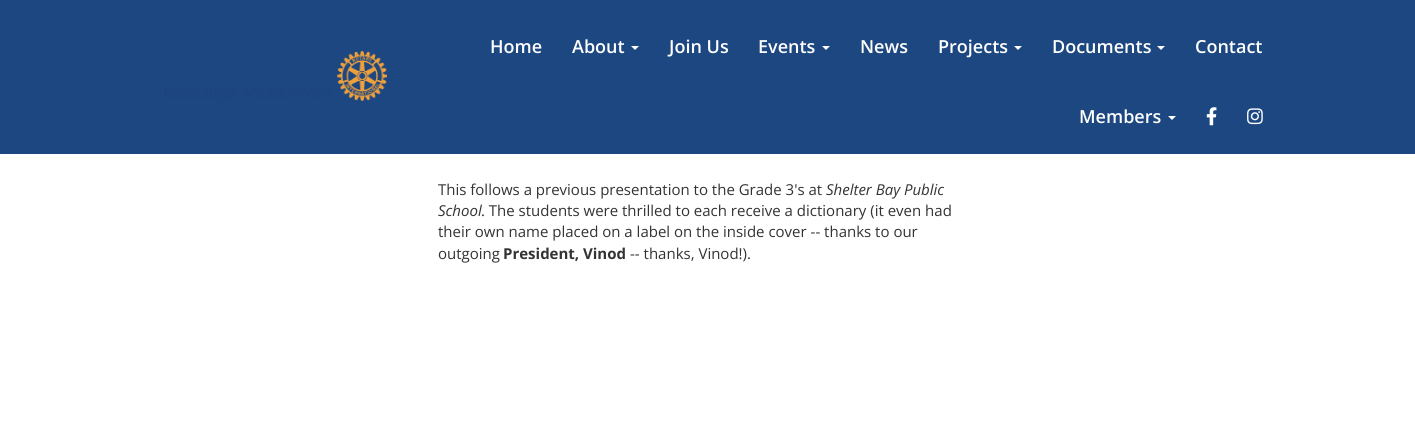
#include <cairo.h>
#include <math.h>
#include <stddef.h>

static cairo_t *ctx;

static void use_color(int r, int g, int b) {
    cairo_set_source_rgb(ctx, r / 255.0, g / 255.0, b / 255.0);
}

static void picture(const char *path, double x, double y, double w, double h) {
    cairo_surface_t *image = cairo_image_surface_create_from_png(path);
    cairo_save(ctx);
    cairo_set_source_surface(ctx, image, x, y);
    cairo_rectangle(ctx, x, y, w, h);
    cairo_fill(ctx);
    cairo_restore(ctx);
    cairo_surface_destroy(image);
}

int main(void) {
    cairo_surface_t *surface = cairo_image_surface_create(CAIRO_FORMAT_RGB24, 1415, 437);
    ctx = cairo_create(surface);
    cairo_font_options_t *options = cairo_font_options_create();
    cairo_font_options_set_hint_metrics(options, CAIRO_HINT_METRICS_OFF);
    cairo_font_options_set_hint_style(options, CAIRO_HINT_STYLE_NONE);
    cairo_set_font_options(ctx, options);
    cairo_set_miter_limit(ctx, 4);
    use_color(255, 255, 255);
    cairo_paint(ctx);
    use_color(29, 71, 129);
    cairo_rectangle(ctx, 0, 0, 1415, 154);
    cairo_fill(ctx);
    picture("img1.png", 165, 51, 222, 50);
    cairo_select_font_face(ctx, "Open Sans SemiBold", CAIRO_FONT_SLANT_NORMAL, CAIRO_FONT_WEIGHT_NORMAL);
    cairo_set_font_size(ctx, 18);
    use_color(255, 255, 255);
    cairo_move_to(ctx, 490, 53);
    cairo_show_text(ctx, "Home");
    cairo_move_to(ctx, 572, 53);
    cairo_show_text(ctx, "About");
    cairo_new_path(ctx);
    cairo_move_to(ctx, 631, 46);
    cairo_line_to(ctx, 639, 46);
    cairo_line_to(ctx, 635, 50);
    cairo_close_path(ctx);
    cairo_fill(ctx);
    cairo_move_to(ctx, 669, 53);
    cairo_show_text(ctx, "Join Us");
    cairo_move_to(ctx, 758, 53);
    cairo_show_text(ctx, "Events");
    cairo_new_path(ctx);
    cairo_move_to(ctx, 822, 46);
    cairo_line_to(ctx, 830, 46);
    cairo_line_to(ctx, 826, 50);
    cairo_close_path(ctx);
    cairo_fill(ctx);
    cairo_move_to(ctx, 860, 53);
    cairo_show_text(ctx, "News");
    cairo_move_to(ctx, 938, 53);
    cairo_show_text(ctx, "Projects");
    cairo_new_path(ctx);
    cairo_move_to(ctx, 1014, 46);
    cairo_line_to(ctx, 1022, 46);
    cairo_line_to(ctx, 1018, 50);
    cairo_close_path(ctx);
    cairo_fill(ctx);
    cairo_move_to(ctx, 1052, 53);
    cairo_show_text(ctx, "Documents");
    cairo_new_path(ctx);
    cairo_move_to(ctx, 1157, 46);
    cairo_line_to(ctx, 1165, 46);
    cairo_line_to(ctx, 1161, 50);
    cairo_close_path(ctx);
    cairo_fill(ctx);
    cairo_move_to(ctx, 1195, 53);
    cairo_show_text(ctx, "Contact");
    cairo_move_to(ctx, 1079, 123);
    cairo_show_text(ctx, "Members");
    cairo_new_path(ctx);
    cairo_move_to(ctx, 1168, 116);
    cairo_line_to(ctx, 1176, 116);
    cairo_line_to(ctx, 1172, 120);
    cairo_close_path(ctx);
    cairo_fill(ctx);
    picture("img2.png", 1206, 107, 11, 19);
    picture("img3.png", 1247, 108, 16, 17);
    cairo_select_font_face(ctx, "Open Sans", CAIRO_FONT_SLANT_NORMAL, CAIRO_FONT_WEIGHT_NORMAL);
    cairo_set_font_size(ctx, 15);
    use_color(51, 51, 51);
    cairo_move_to(ctx, 438, 195);
    cairo_show_text(ctx, "This follows a previous presentation to the Grade 3's at");
    cairo_select_font_face(ctx, "Open Sans", CAIRO_FONT_SLANT_ITALIC, CAIRO_FONT_WEIGHT_NORMAL);
    cairo_move_to(ctx, 826, 195);
    cairo_show_text(ctx, "Shelter Bay Public");
    cairo_move_to(ctx, 438, 216);
    cairo_show_text(ctx, "School");
    cairo_select_font_face(ctx, "Open Sans", CAIRO_FONT_SLANT_NORMAL, CAIRO_FONT_WEIGHT_NORMAL);
    cairo_move_to(ctx, 481, 216);
    cairo_show_text(ctx, ". The students were thrilled to each receive a dictionary (it even had");
    cairo_move_to(ctx, 438, 237);
    cairo_show_text(ctx, "their own name placed on a label on the inside cover -- thanks to our");
    cairo_move_to(ctx, 438, 259);
    cairo_show_text(ctx, "outgoing");
    cairo_select_font_face(ctx, "Open Sans", CAIRO_FONT_SLANT_NORMAL, CAIRO_FONT_WEIGHT_BOLD);
    cairo_move_to(ctx, 503, 259);
    cairo_show_text(ctx, "President, Vinod");
    cairo_select_font_face(ctx, "Open Sans", CAIRO_FONT_SLANT_NORMAL, CAIRO_FONT_WEIGHT_NORMAL);
    cairo_move_to(ctx, 630, 259);
    cairo_show_text(ctx, "-- thanks, Vinod!).");
    cairo_surface_write_to_png(surface, "result.png");
    cairo_font_options_destroy(options);
    cairo_destroy(ctx);
    cairo_surface_destroy(surface);
    return 0;
}
